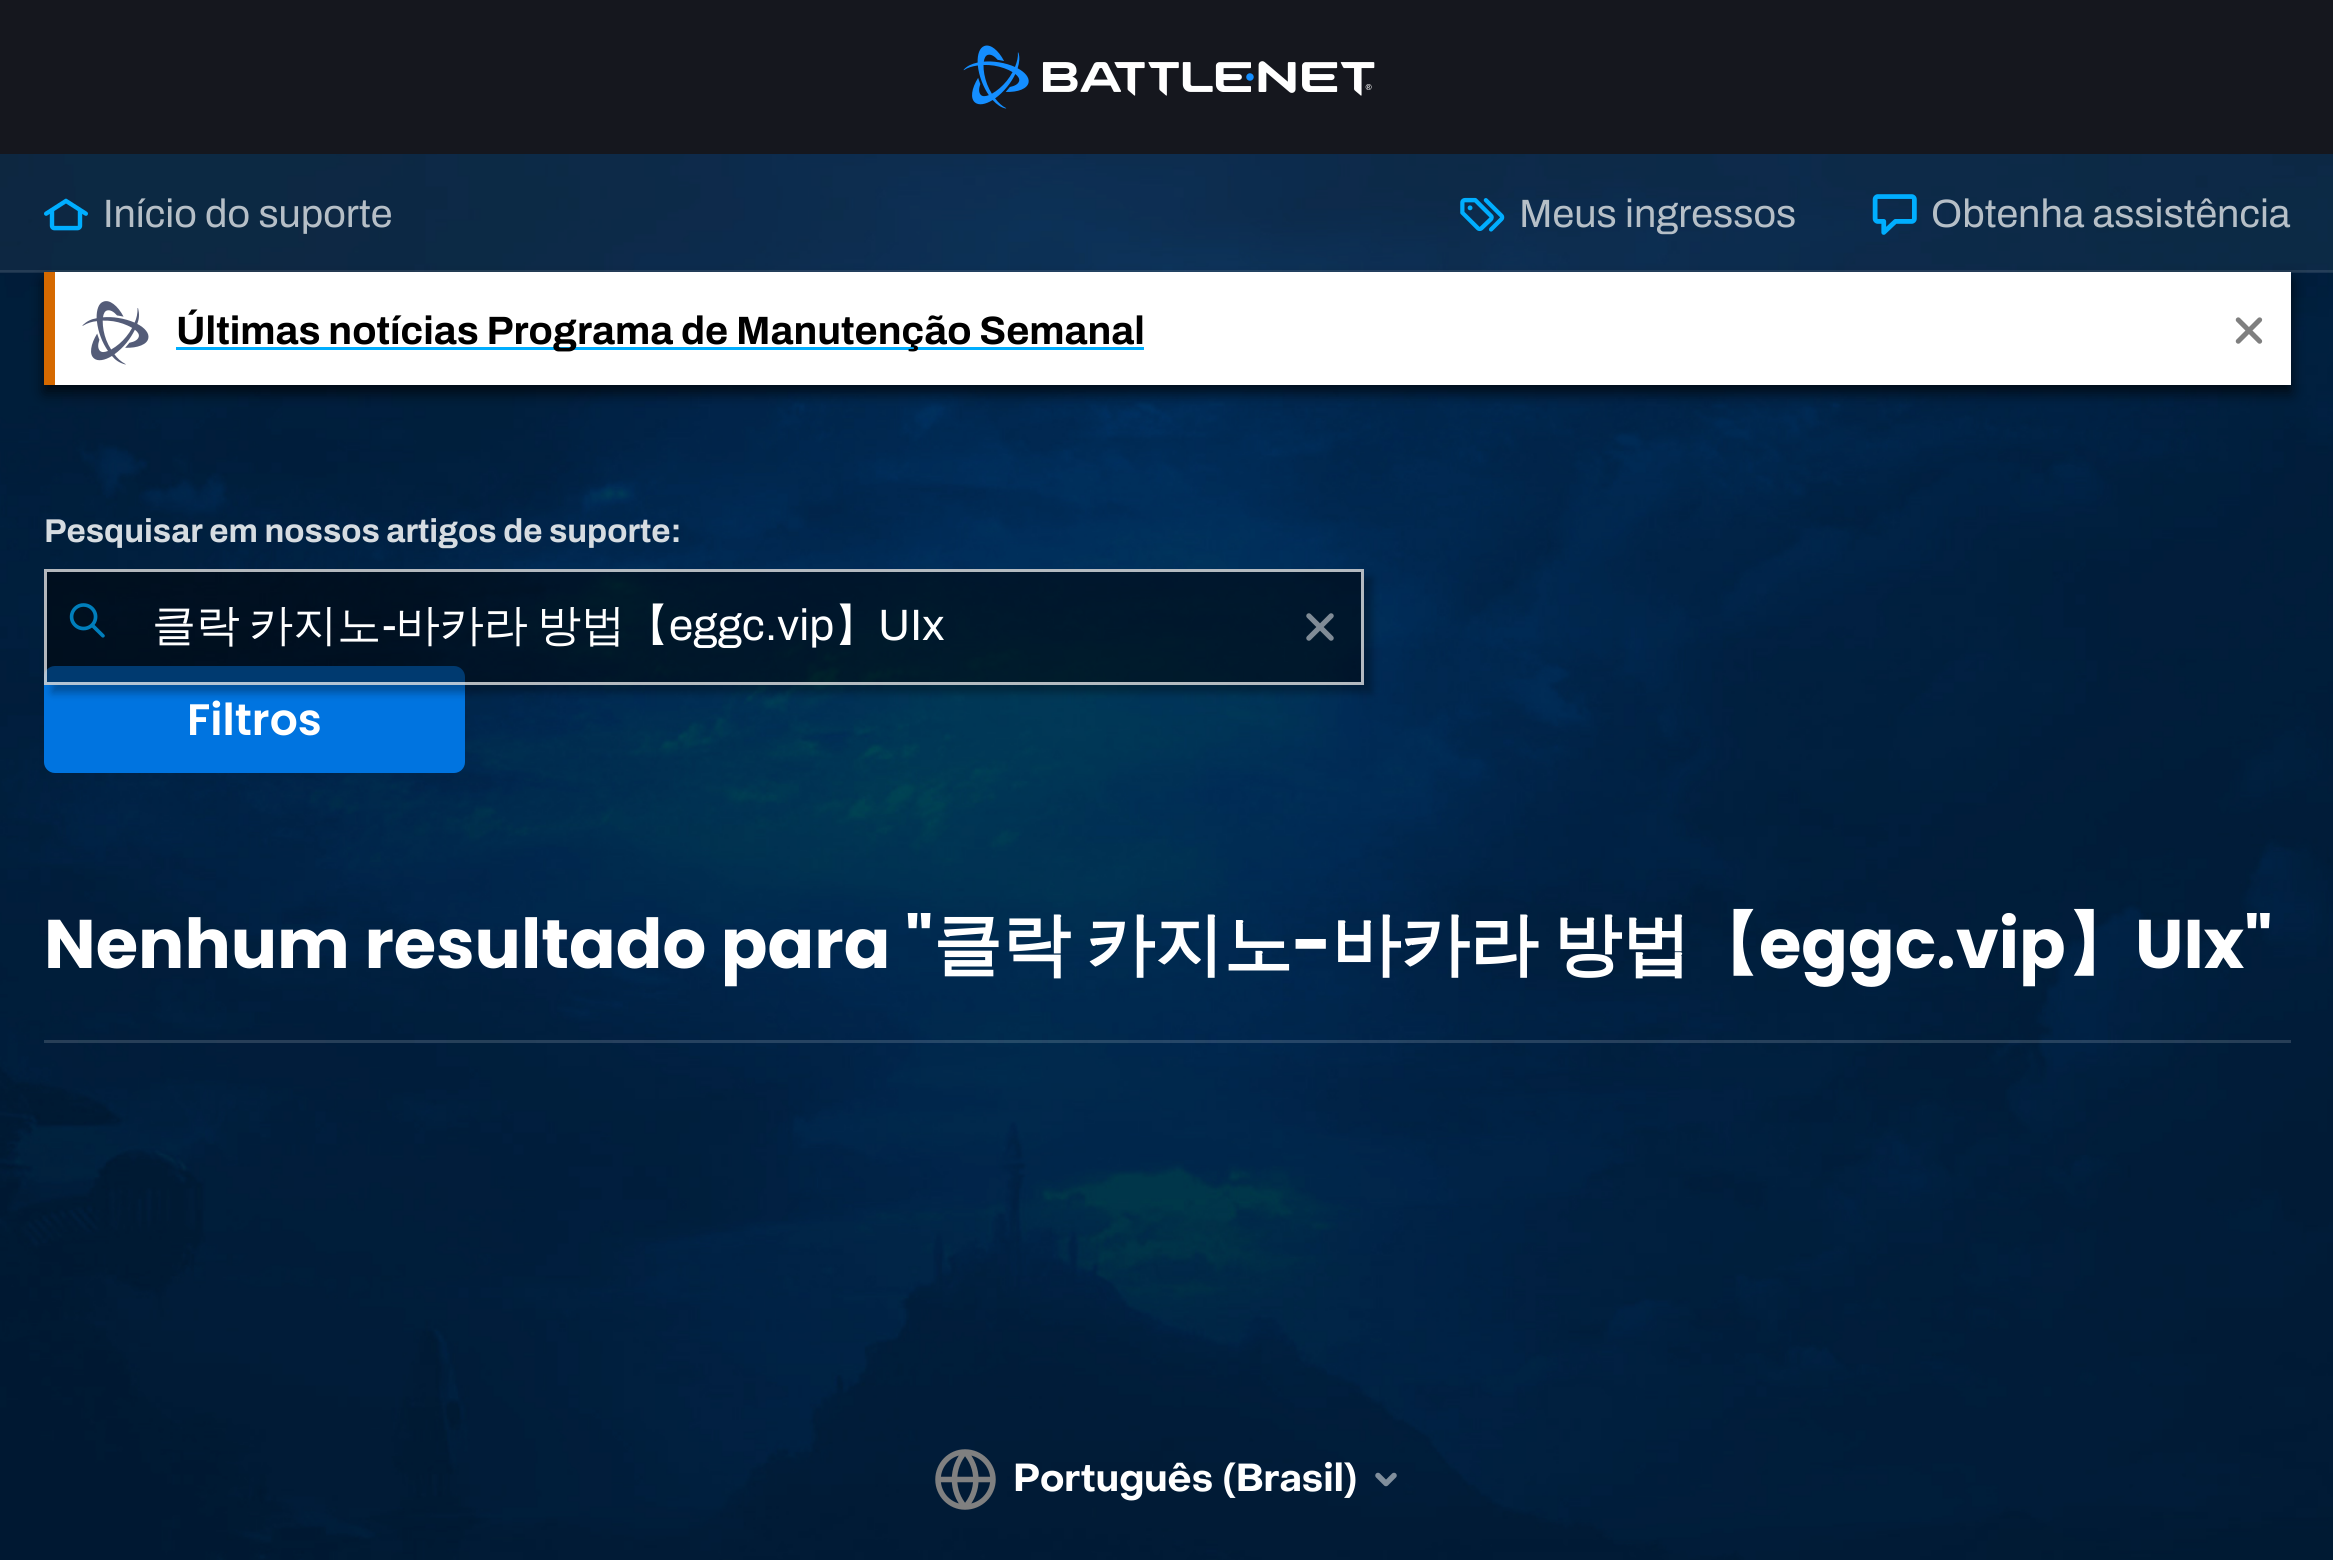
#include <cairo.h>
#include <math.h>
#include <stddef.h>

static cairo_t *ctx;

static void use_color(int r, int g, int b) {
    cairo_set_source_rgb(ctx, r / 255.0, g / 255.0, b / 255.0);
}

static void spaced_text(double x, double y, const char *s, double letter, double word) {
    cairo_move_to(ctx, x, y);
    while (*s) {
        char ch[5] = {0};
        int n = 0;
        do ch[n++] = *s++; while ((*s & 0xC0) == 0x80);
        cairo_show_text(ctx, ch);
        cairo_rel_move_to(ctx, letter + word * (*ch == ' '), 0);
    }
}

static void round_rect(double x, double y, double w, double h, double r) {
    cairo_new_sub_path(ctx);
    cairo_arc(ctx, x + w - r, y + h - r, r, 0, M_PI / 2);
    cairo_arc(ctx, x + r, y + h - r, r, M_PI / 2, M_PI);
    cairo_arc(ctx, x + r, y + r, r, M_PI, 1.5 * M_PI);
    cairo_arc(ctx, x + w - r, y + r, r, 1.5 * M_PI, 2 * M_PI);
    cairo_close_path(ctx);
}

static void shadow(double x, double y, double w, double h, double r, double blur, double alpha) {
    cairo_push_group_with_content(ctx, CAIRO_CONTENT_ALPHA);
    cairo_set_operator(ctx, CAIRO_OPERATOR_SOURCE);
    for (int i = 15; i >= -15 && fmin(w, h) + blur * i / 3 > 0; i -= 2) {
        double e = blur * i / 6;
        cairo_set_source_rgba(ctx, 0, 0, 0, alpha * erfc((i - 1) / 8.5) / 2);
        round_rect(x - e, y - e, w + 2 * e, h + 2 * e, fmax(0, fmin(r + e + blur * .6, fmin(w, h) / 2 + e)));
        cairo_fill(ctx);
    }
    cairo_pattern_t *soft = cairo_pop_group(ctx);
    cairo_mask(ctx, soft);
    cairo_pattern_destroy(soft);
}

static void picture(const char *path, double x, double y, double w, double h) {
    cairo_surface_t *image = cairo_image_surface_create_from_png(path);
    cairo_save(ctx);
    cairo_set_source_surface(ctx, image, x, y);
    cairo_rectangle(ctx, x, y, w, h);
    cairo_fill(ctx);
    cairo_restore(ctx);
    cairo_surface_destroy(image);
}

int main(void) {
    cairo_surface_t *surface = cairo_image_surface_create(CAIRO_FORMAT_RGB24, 2333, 1560);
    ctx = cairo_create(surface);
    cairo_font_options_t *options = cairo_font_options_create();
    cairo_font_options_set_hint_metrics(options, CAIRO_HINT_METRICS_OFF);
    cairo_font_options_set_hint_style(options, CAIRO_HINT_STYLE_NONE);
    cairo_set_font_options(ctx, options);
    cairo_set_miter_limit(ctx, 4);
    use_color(255, 255, 255);
    cairo_paint(ctx);
    use_color(21, 23, 30);
    cairo_rectangle(ctx, 0, 0, 2333, 154);
    cairo_fill(ctx);
    picture("img1.png", 963, 45, 412, 64);
    picture("img7.png", 0, 154, 2333, 1406);
    cairo_set_source_rgba(ctx, 1, 1, 1, 0.05);
    cairo_rectangle(ctx, 0, 154, 2333, 118);
    cairo_fill(ctx);
    cairo_set_source_rgba(ctx, 1, 1, 1, 0.1);
    cairo_rectangle(ctx, 0, 270, 2333, 3);
    cairo_fill(ctx);
    picture("img2.png", 44, 198, 44, 33);
    cairo_select_font_face(ctx, "Archivo", CAIRO_FONT_SLANT_NORMAL, CAIRO_FONT_WEIGHT_NORMAL);
    cairo_set_font_size(ctx, 39.6);
    use_color(182, 191, 199);
    cairo_move_to(ctx, 103, 227);
    cairo_show_text(ctx, "Início do suporte");
    picture("img3.png", 1460, 197, 45, 35);
    cairo_move_to(ctx, 1519, 227);
    cairo_show_text(ctx, "Meus ingressos");
    picture("img4.png", 1872, 194, 45, 41);
    cairo_move_to(ctx, 1931, 227);
    cairo_show_text(ctx, "Obtenha assistência");
    use_color(0, 0, 0);
    shadow(44, 281, 2247, 112, 0, 7, 0.7);
    use_color(255, 255, 255);
    cairo_rectangle(ctx, 55, 272, 2236, 113);
    cairo_fill(ctx);
    picture("img5.png", 2235, 317, 28, 27);
    use_color(213, 105, 0);
    cairo_rectangle(ctx, 44, 272, 11, 113);
    cairo_fill(ctx);
    picture("img6.png", 82, 301, 67, 64);
    use_color(0, 174, 255);
    cairo_rectangle(ctx, 176, 347, 968, 3);
    cairo_fill(ctx);
    cairo_select_font_face(ctx, "Archivo", CAIRO_FONT_SLANT_NORMAL, CAIRO_FONT_WEIGHT_BOLD);
    use_color(0, 0, 0);
    cairo_move_to(ctx, 176, 344);
    cairo_show_text(ctx, "Últimas notícias Programa de Manutenção Semanal");
    cairo_set_font_size(ctx, 33);
    use_color(214, 220, 225);
    cairo_move_to(ctx, 44, 542);
    cairo_show_text(ctx, "Pesquisar em nossos artigos de suporte:");
    use_color(0, 116, 224);
    round_rect(44, 666, 421, 107, 11);
    cairo_fill(ctx);
    cairo_set_source_rgba(ctx, 0, 0, 0, 0.5);
    cairo_rectangle(ctx, 44, 569, 1320, 116);
    cairo_fill(ctx);
    cairo_save(ctx);
    cairo_set_fill_rule(ctx, CAIRO_FILL_RULE_EVEN_ODD);
    cairo_new_path(ctx);
    cairo_move_to(ctx, 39, 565);
    cairo_line_to(ctx, 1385, 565);
    cairo_line_to(ctx, 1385, 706);
    cairo_line_to(ctx, 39, 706);
    cairo_close_path(ctx);
    cairo_move_to(ctx, 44, 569);
    cairo_line_to(ctx, 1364, 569);
    cairo_line_to(ctx, 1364, 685);
    cairo_line_to(ctx, 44, 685);
    cairo_close_path(ctx);
    cairo_clip(ctx);
    use_color(0, 0, 0);
    shadow(52, 578, 1320, 115, 0, 4, 0.3);
    cairo_restore(ctx);
    cairo_rectangle(ctx, 45.5, 570.5, 1317, 113);
    cairo_set_source_rgba(ctx, 1, 1, 1, 0.7);
    cairo_set_line_width(ctx, 3);
    cairo_stroke(ctx);
    picture("img8.png", 69, 603, 36, 35);
    cairo_select_font_face(ctx, "WenQuanYi Zen Hei Medium", CAIRO_FONT_SLANT_NORMAL, CAIRO_FONT_WEIGHT_NORMAL);
    cairo_set_font_size(ctx, 44);
    use_color(255, 255, 255);
    spaced_text(152, 640, "클락 카지노", 0, -4);
    cairo_select_font_face(ctx, "Archivo", CAIRO_FONT_SLANT_NORMAL, CAIRO_FONT_WEIGHT_NORMAL);
    cairo_move_to(ctx, 382, 640);
    cairo_show_text(ctx, "-");
    cairo_select_font_face(ctx, "WenQuanYi Zen Hei Medium", CAIRO_FONT_SLANT_NORMAL, CAIRO_FONT_WEIGHT_NORMAL);
    spaced_text(396, 640, "바카라 방법【", 0, -4);
    cairo_select_font_face(ctx, "Archivo", CAIRO_FONT_SLANT_NORMAL, CAIRO_FONT_WEIGHT_NORMAL);
    cairo_move_to(ctx, 669, 640);
    cairo_show_text(ctx, "eggc.vip");
    cairo_select_font_face(ctx, "WenQuanYi Zen Hei Medium", CAIRO_FONT_SLANT_NORMAL, CAIRO_FONT_WEIGHT_NORMAL);
    cairo_move_to(ctx, 834, 640);
    cairo_show_text(ctx, "】");
    cairo_select_font_face(ctx, "Archivo", CAIRO_FONT_SLANT_NORMAL, CAIRO_FONT_WEIGHT_NORMAL);
    cairo_move_to(ctx, 878, 640);
    cairo_show_text(ctx, "UIx");
    picture("img9.png", 1306, 613, 28, 28);
    cairo_select_font_face(ctx, "Poppins SemiBold", CAIRO_FONT_SLANT_NORMAL, CAIRO_FONT_WEIGHT_NORMAL);
    cairo_move_to(ctx, 187, 735);
    cairo_show_text(ctx, "Filtros");
    cairo_select_font_face(ctx, "Poppins", CAIRO_FONT_SLANT_NORMAL, CAIRO_FONT_WEIGHT_BOLD);
    cairo_set_font_size(ctx, 68.75);
    cairo_move_to(ctx, 44, 968);
    cairo_show_text(ctx, "Nenhum resultado para \"");
    cairo_select_font_face(ctx, "WenQuanYi Zen Hei", CAIRO_FONT_SLANT_NORMAL, CAIRO_FONT_WEIGHT_BOLD);
    cairo_move_to(ctx, 933, 968);
    cairo_show_text(ctx, "클락");
    cairo_move_to(ctx, 1086, 968);
    cairo_show_text(ctx, "카지노");
    cairo_select_font_face(ctx, "Poppins", CAIRO_FONT_SLANT_NORMAL, CAIRO_FONT_WEIGHT_BOLD);
    cairo_move_to(ctx, 1292, 968);
    cairo_show_text(ctx, "-");
    cairo_select_font_face(ctx, "WenQuanYi Zen Hei", CAIRO_FONT_SLANT_NORMAL, CAIRO_FONT_WEIGHT_BOLD);
    cairo_move_to(ctx, 1332, 968);
    cairo_show_text(ctx, "바카라");
    cairo_move_to(ctx, 1553, 968);
    cairo_show_text(ctx, "방법【");
    cairo_select_font_face(ctx, "Poppins", CAIRO_FONT_SLANT_NORMAL, CAIRO_FONT_WEIGHT_BOLD);
    cairo_move_to(ctx, 1759, 968);
    cairo_show_text(ctx, "eggc.vip");
    cairo_select_font_face(ctx, "WenQuanYi Zen Hei", CAIRO_FONT_SLANT_NORMAL, CAIRO_FONT_WEIGHT_BOLD);
    cairo_move_to(ctx, 2066, 968);
    cairo_show_text(ctx, "】");
    cairo_select_font_face(ctx, "Poppins", CAIRO_FONT_SLANT_NORMAL, CAIRO_FONT_WEIGHT_BOLD);
    cairo_move_to(ctx, 2135, 968);
    cairo_show_text(ctx, "UIx\"");
    cairo_set_source_rgba(ctx, 1, 1, 1, 0.15);
    cairo_rectangle(ctx, 44, 1040, 2247, 3);
    cairo_fill(ctx);
    cairo_new_path(ctx);
    cairo_move_to(ctx, 993, 1479.5);
    cairo_curve_to(ctx, 993, 1494.5, 980.5, 1507, 965, 1507);
    cairo_move_to(ctx, 993, 1479.5);
    cairo_curve_to(ctx, 993, 1464.5, 980.5, 1452, 965, 1452);
    cairo_move_to(ctx, 993, 1479.5);
    cairo_line_to(ctx, 938, 1479.5);
    cairo_move_to(ctx, 965, 1507);
    cairo_curve_to(ctx, 950, 1507, 938, 1494.5, 938, 1479.5);
    cairo_move_to(ctx, 965, 1507);
    cairo_curve_to(ctx, 979.5, 1491.5, 979.5, 1467.5, 965, 1452);
    cairo_move_to(ctx, 965, 1507);
    cairo_curve_to(ctx, 951, 1491.5, 951, 1467.5, 965, 1452);
    cairo_move_to(ctx, 938, 1479.5);
    cairo_curve_to(ctx, 938, 1464.5, 950, 1452, 965, 1452);
    use_color(128, 128, 128);
    cairo_set_line_width(ctx, 5.5);
    cairo_set_line_cap(ctx, CAIRO_LINE_CAP_ROUND);
    cairo_set_line_join(ctx, CAIRO_LINE_JOIN_ROUND);
    cairo_stroke(ctx);
    cairo_select_font_face(ctx, "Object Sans", CAIRO_FONT_SLANT_NORMAL, CAIRO_FONT_WEIGHT_BOLD);
    cairo_set_font_size(ctx, 38.5);
    use_color(255, 255, 255);
    cairo_move_to(ctx, 1013, 1491);
    cairo_show_text(ctx, "Português (Brasil)");
    cairo_new_path(ctx);
    cairo_move_to(ctx, 1378, 1475.5);
    cairo_line_to(ctx, 1386, 1483.5);
    cairo_line_to(ctx, 1394, 1475.5);
    use_color(128, 142, 156);
    cairo_stroke(ctx);
    cairo_surface_write_to_png(surface, "result.png");
    cairo_font_options_destroy(options);
    cairo_destroy(ctx);
    cairo_surface_destroy(surface);
    return 0;
}
